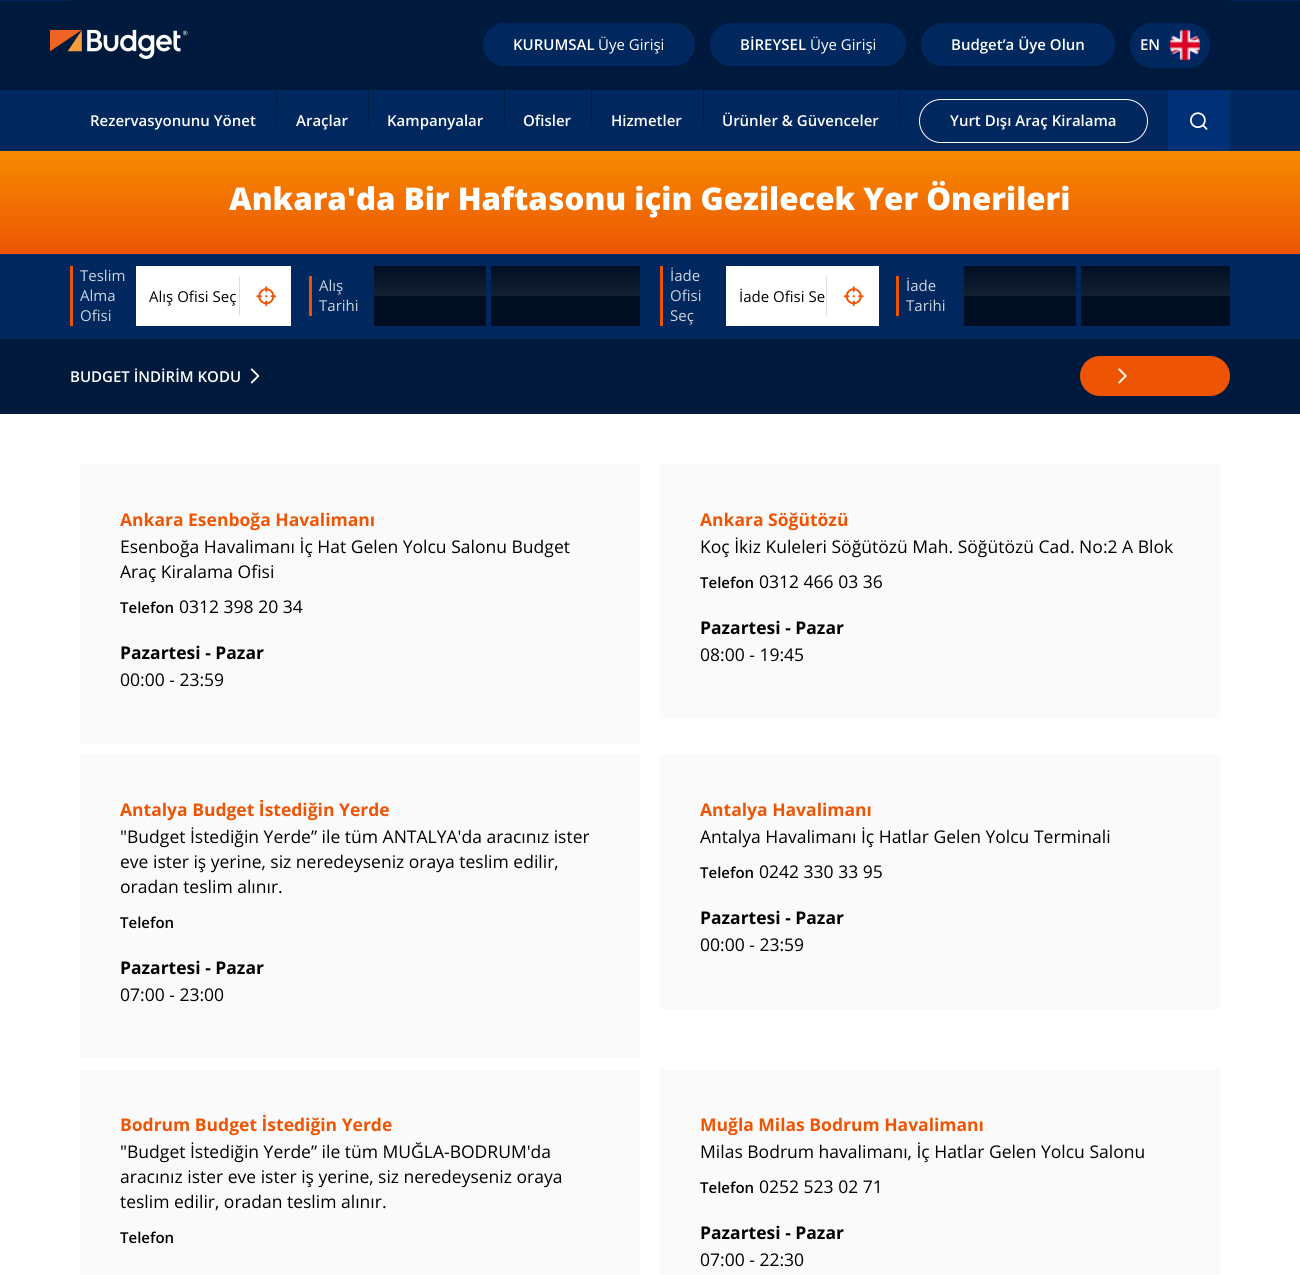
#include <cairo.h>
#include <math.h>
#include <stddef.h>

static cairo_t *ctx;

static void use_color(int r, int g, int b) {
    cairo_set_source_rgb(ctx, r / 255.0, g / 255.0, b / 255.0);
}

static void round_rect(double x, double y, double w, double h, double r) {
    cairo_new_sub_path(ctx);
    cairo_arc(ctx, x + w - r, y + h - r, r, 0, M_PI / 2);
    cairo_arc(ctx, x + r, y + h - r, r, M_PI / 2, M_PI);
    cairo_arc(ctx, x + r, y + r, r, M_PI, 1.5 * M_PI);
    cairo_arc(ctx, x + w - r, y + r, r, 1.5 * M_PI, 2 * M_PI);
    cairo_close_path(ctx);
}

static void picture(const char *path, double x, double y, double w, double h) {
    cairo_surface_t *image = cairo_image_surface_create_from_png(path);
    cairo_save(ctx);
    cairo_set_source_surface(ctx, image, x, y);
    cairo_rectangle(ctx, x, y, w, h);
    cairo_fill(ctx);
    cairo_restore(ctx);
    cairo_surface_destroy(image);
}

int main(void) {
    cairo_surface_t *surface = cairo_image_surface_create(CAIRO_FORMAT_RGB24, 1300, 1275);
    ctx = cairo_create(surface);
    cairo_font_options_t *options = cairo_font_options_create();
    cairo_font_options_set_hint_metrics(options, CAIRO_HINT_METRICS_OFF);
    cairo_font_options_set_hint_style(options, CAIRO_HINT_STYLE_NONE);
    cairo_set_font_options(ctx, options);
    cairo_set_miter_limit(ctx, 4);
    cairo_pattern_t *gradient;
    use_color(255, 255, 255);
    cairo_paint(ctx);
    use_color(0, 40, 95);
    cairo_rectangle(ctx, 0, 0, 1300, 151);
    cairo_fill(ctx);
    use_color(0, 26, 61);
    cairo_rectangle(ctx, 70, 0, 1160, 90);
    cairo_fill(ctx);
    cairo_rectangle(ctx, 0, 1, 70, 89);
    cairo_fill(ctx);
    picture("img1.png", 50, 29, 138, 30);
    use_color(0, 40, 95);
    round_rect(483, 23, 212, 43, 21.5);
    cairo_fill(ctx);
    cairo_select_font_face(ctx, "Open Sans SemiBold", CAIRO_FONT_SLANT_NORMAL, CAIRO_FONT_WEIGHT_NORMAL);
    cairo_set_font_size(ctx, 15);
    use_color(255, 255, 255);
    cairo_move_to(ctx, 513, 50);
    cairo_show_text(ctx, "KURUMSAL");
    cairo_select_font_face(ctx, "Open Sans", CAIRO_FONT_SLANT_NORMAL, CAIRO_FONT_WEIGHT_NORMAL);
    cairo_move_to(ctx, 598, 50);
    cairo_show_text(ctx, "Üye Girişi");
    use_color(0, 40, 95);
    round_rect(710, 23, 196, 43, 21.5);
    cairo_fill(ctx);
    cairo_select_font_face(ctx, "Open Sans SemiBold", CAIRO_FONT_SLANT_NORMAL, CAIRO_FONT_WEIGHT_NORMAL);
    use_color(255, 255, 255);
    cairo_move_to(ctx, 740, 50);
    cairo_show_text(ctx, "BİREYSEL");
    cairo_select_font_face(ctx, "Open Sans", CAIRO_FONT_SLANT_NORMAL, CAIRO_FONT_WEIGHT_NORMAL);
    cairo_move_to(ctx, 810, 50);
    cairo_show_text(ctx, "Üye Girişi");
    use_color(0, 40, 95);
    round_rect(921, 23, 194, 43, 21.5);
    cairo_fill(ctx);
    cairo_select_font_face(ctx, "Open Sans SemiBold", CAIRO_FONT_SLANT_NORMAL, CAIRO_FONT_WEIGHT_NORMAL);
    use_color(255, 255, 255);
    cairo_move_to(ctx, 951, 50);
    cairo_show_text(ctx, "Budget’a Üye Olun");
    use_color(0, 40, 95);
    round_rect(1130, 23, 80, 45, 22.5);
    cairo_fill(ctx);
    use_color(255, 255, 255);
    cairo_move_to(ctx, 1140, 50);
    cairo_show_text(ctx, "EN");
    picture("img2.png", 1170, 29, 30, 31);
    use_color(0, 26, 61);
    cairo_rectangle(ctx, 1230, 1, 70, 89);
    cairo_fill(ctx);
    use_color(255, 255, 255);
    cairo_move_to(ctx, 90, 126);
    cairo_show_text(ctx, "Rezervasyonunu Yönet");
    gradient = cairo_pattern_create_linear(277, 90, 277, 151);
    cairo_pattern_add_color_stop_rgba(gradient, 0, 0, 0.102, 0.239, 1);
    cairo_pattern_add_color_stop_rgba(gradient, 1, 0, 0.157, 0.373, 1);
    cairo_set_source(ctx, gradient);
    cairo_pattern_destroy(gradient);
    cairo_rectangle(ctx, 276, 90, 1, 61);
    cairo_fill(ctx);
    use_color(255, 255, 255);
    cairo_move_to(ctx, 296, 126);
    cairo_show_text(ctx, "Araçlar");
    gradient = cairo_pattern_create_linear(368, 90, 368, 151);
    cairo_pattern_add_color_stop_rgba(gradient, 0, 0, 0.102, 0.239, 1);
    cairo_pattern_add_color_stop_rgba(gradient, 1, 0, 0.157, 0.373, 1);
    cairo_set_source(ctx, gradient);
    cairo_pattern_destroy(gradient);
    cairo_rectangle(ctx, 368, 90, 1, 61);
    cairo_fill(ctx);
    use_color(255, 255, 255);
    cairo_move_to(ctx, 387, 126);
    cairo_show_text(ctx, "Kampanyalar");
    gradient = cairo_pattern_create_linear(504, 90, 504, 151);
    cairo_pattern_add_color_stop_rgba(gradient, 0, 0, 0.102, 0.239, 1);
    cairo_pattern_add_color_stop_rgba(gradient, 1, 0, 0.157, 0.373, 1);
    cairo_set_source(ctx, gradient);
    cairo_pattern_destroy(gradient);
    cairo_rectangle(ctx, 504, 90, 1, 61);
    cairo_fill(ctx);
    use_color(255, 255, 255);
    cairo_move_to(ctx, 523, 126);
    cairo_show_text(ctx, "Ofisler");
    gradient = cairo_pattern_create_linear(592, 90, 592, 151);
    cairo_pattern_add_color_stop_rgba(gradient, 0, 0, 0.102, 0.239, 1);
    cairo_pattern_add_color_stop_rgba(gradient, 1, 0, 0.157, 0.373, 1);
    cairo_set_source(ctx, gradient);
    cairo_pattern_destroy(gradient);
    cairo_rectangle(ctx, 591, 90, 1, 61);
    cairo_fill(ctx);
    use_color(255, 255, 255);
    cairo_move_to(ctx, 611, 126);
    cairo_show_text(ctx, "Hizmetler");
    gradient = cairo_pattern_create_linear(703, 90, 703, 151);
    cairo_pattern_add_color_stop_rgba(gradient, 0, 0, 0.102, 0.239, 1);
    cairo_pattern_add_color_stop_rgba(gradient, 1, 0, 0.157, 0.373, 1);
    cairo_set_source(ctx, gradient);
    cairo_pattern_destroy(gradient);
    cairo_rectangle(ctx, 703, 90, 1, 61);
    cairo_fill(ctx);
    use_color(255, 255, 255);
    cairo_move_to(ctx, 722, 126);
    cairo_show_text(ctx, "Ürünler & Güvenceler");
    gradient = cairo_pattern_create_linear(899, 90, 899, 151);
    cairo_pattern_add_color_stop_rgba(gradient, 0, 0, 0.102, 0.239, 1);
    cairo_pattern_add_color_stop_rgba(gradient, 1, 0, 0.157, 0.373, 1);
    cairo_set_source(ctx, gradient);
    cairo_pattern_destroy(gradient);
    cairo_rectangle(ctx, 899, 90, 1, 61);
    cairo_fill(ctx);
    round_rect(919.5, 99.5, 228, 43, 21.5);
    use_color(255, 255, 255);
    cairo_set_line_width(ctx, 1);
    cairo_stroke(ctx);
    cairo_move_to(ctx, 950, 126);
    cairo_show_text(ctx, "Yurt Dışı Araç Kiralama");
    use_color(0, 48, 118);
    cairo_rectangle(ctx, 1168, 90, 62, 61);
    cairo_fill(ctx);
    picture("img3.png", 1190, 112, 18, 18);
    gradient = cairo_pattern_create_linear(650, 151, 650, 254);
    cairo_pattern_add_color_stop_rgba(gradient, 0, 0.969, 0.545, 0, 1);
    cairo_pattern_add_color_stop_rgba(gradient, 1, 0.929, 0.333, 0.02, 1);
    cairo_set_source(ctx, gradient);
    cairo_pattern_destroy(gradient);
    cairo_rectangle(ctx, 0, 151, 1300, 103);
    cairo_fill(ctx);
    cairo_select_font_face(ctx, "Open Sans ExtraBold", CAIRO_FONT_SLANT_NORMAL, CAIRO_FONT_WEIGHT_NORMAL);
    cairo_set_font_size(ctx, 31.25);
    use_color(255, 255, 255);
    cairo_move_to(ctx, 229, 210);
    cairo_show_text(ctx, "Ankara'da Bir Haftasonu için Gezilecek Yer Önerileri");
    use_color(0, 40, 95);
    cairo_rectangle(ctx, 0, 254, 1300, 85);
    cairo_fill(ctx);
    use_color(237, 85, 5);
    cairo_rectangle(ctx, 70, 266, 3, 60);
    cairo_fill(ctx);
    cairo_select_font_face(ctx, "Open Sans", CAIRO_FONT_SLANT_NORMAL, CAIRO_FONT_WEIGHT_NORMAL);
    cairo_set_font_size(ctx, 15);
    use_color(204, 212, 223);
    cairo_move_to(ctx, 80, 281);
    cairo_show_text(ctx, "Teslim");
    cairo_move_to(ctx, 80, 301);
    cairo_show_text(ctx, "Alma");
    cairo_move_to(ctx, 80, 321);
    cairo_show_text(ctx, "Ofisi");
    use_color(255, 255, 255);
    cairo_rectangle(ctx, 136, 266, 155, 60);
    cairo_fill(ctx);
    use_color(0, 0, 0);
    cairo_move_to(ctx, 149, 302);
    cairo_show_text(ctx, "Alış Ofisi Seç");
    use_color(225, 222, 217);
    cairo_rectangle(ctx, 239, 276, 1, 40);
    cairo_fill(ctx);
    picture("img4.png", 256, 286, 21, 21);
    use_color(237, 85, 5);
    cairo_rectangle(ctx, 309, 276, 3, 40);
    cairo_fill(ctx);
    use_color(204, 212, 223);
    cairo_move_to(ctx, 319, 291);
    cairo_show_text(ctx, "Alış");
    cairo_move_to(ctx, 319, 311);
    cairo_show_text(ctx, "Tarihi");
    use_color(0, 14, 33);
    cairo_rectangle(ctx, 374, 296, 112, 30);
    cairo_fill(ctx);
    gradient = cairo_pattern_create_linear(430, 266, 430, 296);
    cairo_pattern_add_color_stop_rgba(gradient, 0, 0, 0.055, 0.129, 1);
    cairo_pattern_add_color_stop_rgba(gradient, 1, 0.078, 0.129, 0.2, 1);
    cairo_set_source(ctx, gradient);
    cairo_pattern_destroy(gradient);
    cairo_rectangle(ctx, 374, 266, 112, 30);
    cairo_fill(ctx);
    use_color(0, 14, 33);
    cairo_rectangle(ctx, 491, 296, 149, 30);
    cairo_fill(ctx);
    gradient = cairo_pattern_create_linear(566, 266, 566, 296);
    cairo_pattern_add_color_stop_rgba(gradient, 0, 0, 0.055, 0.129, 1);
    cairo_pattern_add_color_stop_rgba(gradient, 1, 0.078, 0.129, 0.2, 1);
    cairo_set_source(ctx, gradient);
    cairo_pattern_destroy(gradient);
    cairo_rectangle(ctx, 491, 266, 149, 30);
    cairo_fill(ctx);
    use_color(237, 85, 5);
    cairo_rectangle(ctx, 660, 266, 3, 60);
    cairo_fill(ctx);
    use_color(204, 212, 223);
    cairo_move_to(ctx, 670, 281);
    cairo_show_text(ctx, "İade");
    cairo_move_to(ctx, 670, 301);
    cairo_show_text(ctx, "Ofisi");
    cairo_move_to(ctx, 670, 321);
    cairo_show_text(ctx, "Seç");
    use_color(255, 255, 255);
    cairo_rectangle(ctx, 726, 266, 153, 60);
    cairo_fill(ctx);
    use_color(0, 0, 0);
    cairo_move_to(ctx, 739, 302);
    cairo_show_text(ctx, "İade Ofisi Se");
    use_color(225, 222, 217);
    cairo_rectangle(ctx, 826, 276, 1, 40);
    cairo_fill(ctx);
    picture("img5.png", 843, 286, 21, 21);
    use_color(237, 85, 5);
    cairo_rectangle(ctx, 896, 276, 3, 40);
    cairo_fill(ctx);
    use_color(204, 212, 223);
    cairo_move_to(ctx, 906, 291);
    cairo_show_text(ctx, "İade");
    cairo_move_to(ctx, 906, 311);
    cairo_show_text(ctx, "Tarihi");
    use_color(0, 14, 33);
    cairo_rectangle(ctx, 964, 296, 112, 30);
    cairo_fill(ctx);
    gradient = cairo_pattern_create_linear(1020, 266, 1020, 296);
    cairo_pattern_add_color_stop_rgba(gradient, 0, 0, 0.055, 0.129, 1);
    cairo_pattern_add_color_stop_rgba(gradient, 1, 0.078, 0.129, 0.2, 1);
    cairo_set_source(ctx, gradient);
    cairo_pattern_destroy(gradient);
    cairo_rectangle(ctx, 964, 266, 112, 30);
    cairo_fill(ctx);
    use_color(0, 14, 33);
    cairo_rectangle(ctx, 1081, 296, 149, 30);
    cairo_fill(ctx);
    gradient = cairo_pattern_create_linear(1156, 266, 1156, 296);
    cairo_pattern_add_color_stop_rgba(gradient, 0, 0, 0.055, 0.129, 1);
    cairo_pattern_add_color_stop_rgba(gradient, 1, 0.078, 0.129, 0.2, 1);
    cairo_set_source(ctx, gradient);
    cairo_pattern_destroy(gradient);
    cairo_rectangle(ctx, 1081, 266, 149, 30);
    cairo_fill(ctx);
    use_color(0, 26, 61);
    cairo_rectangle(ctx, 0, 339, 1300, 75);
    cairo_fill(ctx);
    cairo_select_font_face(ctx, "Open Sans SemiBold", CAIRO_FONT_SLANT_NORMAL, CAIRO_FONT_WEIGHT_NORMAL);
    use_color(255, 255, 255);
    cairo_move_to(ctx, 70, 382);
    cairo_show_text(ctx, "BUDGET İNDİRİM KODU");
    picture("img6.png", 250, 368, 10, 16);
    use_color(237, 85, 5);
    round_rect(1080, 356, 150, 40, 20);
    cairo_fill(ctx);
    picture("img7.png", 1118, 368, 9, 16);
    use_color(250, 250, 250);
    cairo_rectangle(ctx, 80, 464, 560, 280);
    cairo_fill(ctx);
    cairo_select_font_face(ctx, "Open Sans", CAIRO_FONT_SLANT_NORMAL, CAIRO_FONT_WEIGHT_BOLD);
    cairo_set_font_size(ctx, 17.5);
    use_color(237, 85, 5);
    cairo_move_to(ctx, 120, 526);
    cairo_show_text(ctx, "Ankara Esenboğa Havalimanı");
    cairo_select_font_face(ctx, "Open Sans", CAIRO_FONT_SLANT_NORMAL, CAIRO_FONT_WEIGHT_NORMAL);
    use_color(0, 0, 0);
    cairo_move_to(ctx, 120, 553);
    cairo_show_text(ctx, "Esenboğa Havalimanı İç Hat Gelen Yolcu Salonu Budget");
    cairo_move_to(ctx, 120, 578);
    cairo_show_text(ctx, "Araç Kiralama Ofisi");
    cairo_select_font_face(ctx, "Open Sans SemiBold", CAIRO_FONT_SLANT_NORMAL, CAIRO_FONT_WEIGHT_NORMAL);
    cairo_set_font_size(ctx, 15);
    cairo_move_to(ctx, 120, 613);
    cairo_show_text(ctx, "Telefon");
    cairo_select_font_face(ctx, "Open Sans", CAIRO_FONT_SLANT_NORMAL, CAIRO_FONT_WEIGHT_NORMAL);
    cairo_set_font_size(ctx, 17.5);
    cairo_move_to(ctx, 179, 613);
    cairo_show_text(ctx, "0312 398 20 34");
    cairo_select_font_face(ctx, "Open Sans", CAIRO_FONT_SLANT_NORMAL, CAIRO_FONT_WEIGHT_BOLD);
    cairo_move_to(ctx, 120, 659);
    cairo_show_text(ctx, "Pazartesi - Pazar");
    cairo_select_font_face(ctx, "Open Sans", CAIRO_FONT_SLANT_NORMAL, CAIRO_FONT_WEIGHT_NORMAL);
    cairo_move_to(ctx, 120, 686);
    cairo_show_text(ctx, "00:00 - 23:59");
    use_color(250, 250, 250);
    cairo_rectangle(ctx, 660, 464, 560, 255);
    cairo_fill(ctx);
    cairo_select_font_face(ctx, "Open Sans", CAIRO_FONT_SLANT_NORMAL, CAIRO_FONT_WEIGHT_BOLD);
    use_color(237, 85, 5);
    cairo_move_to(ctx, 700, 526);
    cairo_show_text(ctx, "Ankara Söğütözü");
    cairo_select_font_face(ctx, "Open Sans", CAIRO_FONT_SLANT_NORMAL, CAIRO_FONT_WEIGHT_NORMAL);
    use_color(0, 0, 0);
    cairo_move_to(ctx, 700, 553);
    cairo_show_text(ctx, "Koç İkiz Kuleleri Söğütözü Mah. Söğütözü Cad. No:2 A Blok");
    cairo_select_font_face(ctx, "Open Sans SemiBold", CAIRO_FONT_SLANT_NORMAL, CAIRO_FONT_WEIGHT_NORMAL);
    cairo_set_font_size(ctx, 15);
    cairo_move_to(ctx, 700, 588);
    cairo_show_text(ctx, "Telefon");
    cairo_select_font_face(ctx, "Open Sans", CAIRO_FONT_SLANT_NORMAL, CAIRO_FONT_WEIGHT_NORMAL);
    cairo_set_font_size(ctx, 17.5);
    cairo_move_to(ctx, 759, 588);
    cairo_show_text(ctx, "0312 466 03 36");
    cairo_select_font_face(ctx, "Open Sans", CAIRO_FONT_SLANT_NORMAL, CAIRO_FONT_WEIGHT_BOLD);
    cairo_move_to(ctx, 700, 634);
    cairo_show_text(ctx, "Pazartesi - Pazar");
    cairo_select_font_face(ctx, "Open Sans", CAIRO_FONT_SLANT_NORMAL, CAIRO_FONT_WEIGHT_NORMAL);
    cairo_move_to(ctx, 700, 661);
    cairo_show_text(ctx, "08:00 - 19:45");
    use_color(250, 250, 250);
    cairo_rectangle(ctx, 80, 754, 560, 305);
    cairo_fill(ctx);
    cairo_select_font_face(ctx, "Open Sans", CAIRO_FONT_SLANT_NORMAL, CAIRO_FONT_WEIGHT_BOLD);
    use_color(237, 85, 5);
    cairo_move_to(ctx, 120, 816);
    cairo_show_text(ctx, "Antalya Budget İstediğin Yerde");
    cairo_select_font_face(ctx, "Open Sans", CAIRO_FONT_SLANT_NORMAL, CAIRO_FONT_WEIGHT_NORMAL);
    use_color(0, 0, 0);
    cairo_move_to(ctx, 120, 843);
    cairo_show_text(ctx, "\"Budget İstediğin Yerde” ile tüm ANTALYA'da aracınız ister");
    cairo_move_to(ctx, 120, 868);
    cairo_show_text(ctx, "eve ister iş yerine, siz neredeyseniz oraya teslim edilir,");
    cairo_move_to(ctx, 120, 893);
    cairo_show_text(ctx, "oradan teslim alınır.");
    cairo_select_font_face(ctx, "Open Sans SemiBold", CAIRO_FONT_SLANT_NORMAL, CAIRO_FONT_WEIGHT_NORMAL);
    cairo_set_font_size(ctx, 15);
    cairo_move_to(ctx, 120, 928);
    cairo_show_text(ctx, "Telefon");
    cairo_select_font_face(ctx, "Open Sans", CAIRO_FONT_SLANT_NORMAL, CAIRO_FONT_WEIGHT_BOLD);
    cairo_set_font_size(ctx, 17.5);
    cairo_move_to(ctx, 120, 974);
    cairo_show_text(ctx, "Pazartesi - Pazar");
    cairo_select_font_face(ctx, "Open Sans", CAIRO_FONT_SLANT_NORMAL, CAIRO_FONT_WEIGHT_NORMAL);
    cairo_move_to(ctx, 120, 1001);
    cairo_show_text(ctx, "07:00 - 23:00");
    use_color(250, 250, 250);
    cairo_rectangle(ctx, 660, 754, 560, 255);
    cairo_fill(ctx);
    cairo_select_font_face(ctx, "Open Sans", CAIRO_FONT_SLANT_NORMAL, CAIRO_FONT_WEIGHT_BOLD);
    use_color(237, 85, 5);
    cairo_move_to(ctx, 700, 816);
    cairo_show_text(ctx, "Antalya Havalimanı");
    cairo_select_font_face(ctx, "Open Sans", CAIRO_FONT_SLANT_NORMAL, CAIRO_FONT_WEIGHT_NORMAL);
    use_color(0, 0, 0);
    cairo_move_to(ctx, 700, 843);
    cairo_show_text(ctx, "Antalya Havalimanı İç Hatlar Gelen Yolcu Terminali");
    cairo_select_font_face(ctx, "Open Sans SemiBold", CAIRO_FONT_SLANT_NORMAL, CAIRO_FONT_WEIGHT_NORMAL);
    cairo_set_font_size(ctx, 15);
    cairo_move_to(ctx, 700, 878);
    cairo_show_text(ctx, "Telefon");
    cairo_select_font_face(ctx, "Open Sans", CAIRO_FONT_SLANT_NORMAL, CAIRO_FONT_WEIGHT_NORMAL);
    cairo_set_font_size(ctx, 17.5);
    cairo_move_to(ctx, 759, 878);
    cairo_show_text(ctx, "0242 330 33 95");
    cairo_select_font_face(ctx, "Open Sans", CAIRO_FONT_SLANT_NORMAL, CAIRO_FONT_WEIGHT_BOLD);
    cairo_move_to(ctx, 700, 924);
    cairo_show_text(ctx, "Pazartesi - Pazar");
    cairo_select_font_face(ctx, "Open Sans", CAIRO_FONT_SLANT_NORMAL, CAIRO_FONT_WEIGHT_NORMAL);
    cairo_move_to(ctx, 700, 951);
    cairo_show_text(ctx, "00:00 - 23:59");
    use_color(250, 250, 250);
    cairo_rectangle(ctx, 80, 1069, 560, 206);
    cairo_fill(ctx);
    cairo_select_font_face(ctx, "Open Sans", CAIRO_FONT_SLANT_NORMAL, CAIRO_FONT_WEIGHT_BOLD);
    use_color(237, 85, 5);
    cairo_move_to(ctx, 120, 1131);
    cairo_show_text(ctx, "Bodrum Budget İstediğin Yerde");
    cairo_select_font_face(ctx, "Open Sans", CAIRO_FONT_SLANT_NORMAL, CAIRO_FONT_WEIGHT_NORMAL);
    use_color(0, 0, 0);
    cairo_move_to(ctx, 120, 1158);
    cairo_show_text(ctx, "\"Budget İstediğin Yerde” ile tüm MUĞLA-BODRUM'da");
    cairo_move_to(ctx, 120, 1183);
    cairo_show_text(ctx, "aracınız ister eve ister iş yerine, siz neredeyseniz oraya");
    cairo_move_to(ctx, 120, 1208);
    cairo_show_text(ctx, "teslim edilir, oradan teslim alınır.");
    cairo_select_font_face(ctx, "Open Sans SemiBold", CAIRO_FONT_SLANT_NORMAL, CAIRO_FONT_WEIGHT_NORMAL);
    cairo_set_font_size(ctx, 15);
    cairo_move_to(ctx, 120, 1243);
    cairo_show_text(ctx, "Telefon");
    use_color(250, 250, 250);
    cairo_rectangle(ctx, 660, 1069, 560, 206);
    cairo_fill(ctx);
    cairo_select_font_face(ctx, "Open Sans", CAIRO_FONT_SLANT_NORMAL, CAIRO_FONT_WEIGHT_BOLD);
    cairo_set_font_size(ctx, 17.5);
    use_color(237, 85, 5);
    cairo_move_to(ctx, 700, 1131);
    cairo_show_text(ctx, "Muğla Milas Bodrum Havalimanı");
    cairo_select_font_face(ctx, "Open Sans", CAIRO_FONT_SLANT_NORMAL, CAIRO_FONT_WEIGHT_NORMAL);
    use_color(0, 0, 0);
    cairo_move_to(ctx, 700, 1158);
    cairo_show_text(ctx, "Milas Bodrum havalimanı, İç Hatlar Gelen Yolcu Salonu");
    cairo_select_font_face(ctx, "Open Sans SemiBold", CAIRO_FONT_SLANT_NORMAL, CAIRO_FONT_WEIGHT_NORMAL);
    cairo_set_font_size(ctx, 15);
    cairo_move_to(ctx, 700, 1193);
    cairo_show_text(ctx, "Telefon");
    cairo_select_font_face(ctx, "Open Sans", CAIRO_FONT_SLANT_NORMAL, CAIRO_FONT_WEIGHT_NORMAL);
    cairo_set_font_size(ctx, 17.5);
    cairo_move_to(ctx, 759, 1193);
    cairo_show_text(ctx, "0252 523 02 71");
    cairo_select_font_face(ctx, "Open Sans", CAIRO_FONT_SLANT_NORMAL, CAIRO_FONT_WEIGHT_BOLD);
    cairo_move_to(ctx, 700, 1239);
    cairo_show_text(ctx, "Pazartesi - Pazar");
    cairo_select_font_face(ctx, "Open Sans", CAIRO_FONT_SLANT_NORMAL, CAIRO_FONT_WEIGHT_NORMAL);
    cairo_move_to(ctx, 700, 1266);
    cairo_show_text(ctx, "07:00 - 22:30");
    cairo_surface_write_to_png(surface, "result.png");
    cairo_font_options_destroy(options);
    cairo_destroy(ctx);
    cairo_surface_destroy(surface);
    return 0;
}
